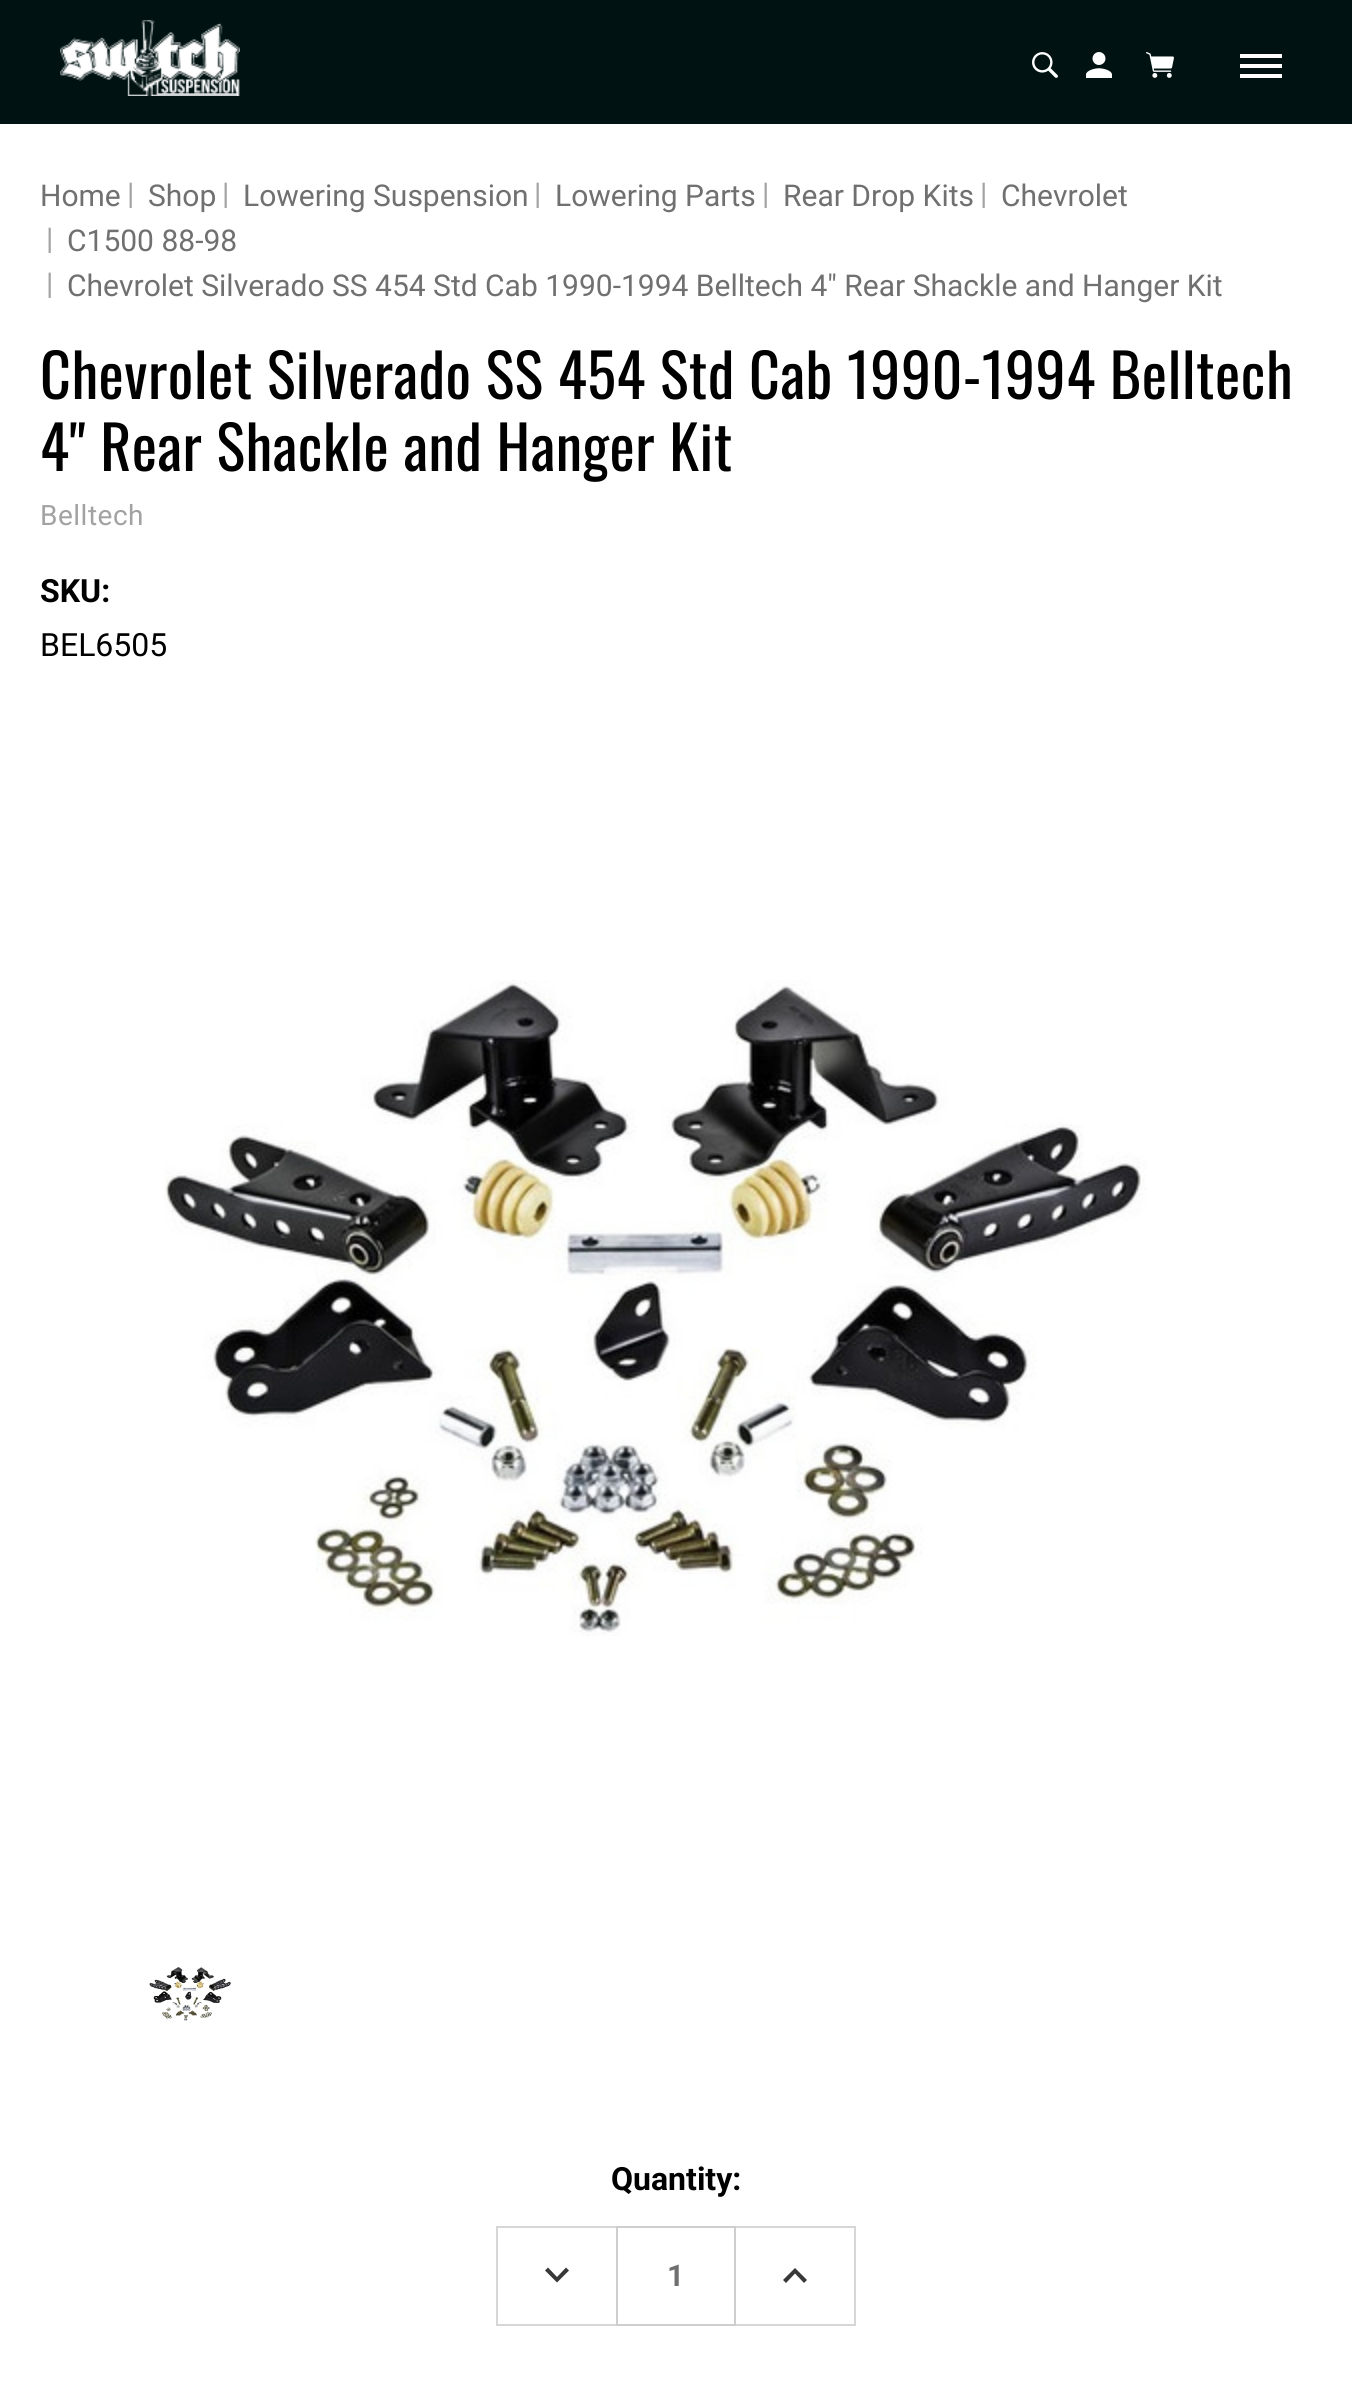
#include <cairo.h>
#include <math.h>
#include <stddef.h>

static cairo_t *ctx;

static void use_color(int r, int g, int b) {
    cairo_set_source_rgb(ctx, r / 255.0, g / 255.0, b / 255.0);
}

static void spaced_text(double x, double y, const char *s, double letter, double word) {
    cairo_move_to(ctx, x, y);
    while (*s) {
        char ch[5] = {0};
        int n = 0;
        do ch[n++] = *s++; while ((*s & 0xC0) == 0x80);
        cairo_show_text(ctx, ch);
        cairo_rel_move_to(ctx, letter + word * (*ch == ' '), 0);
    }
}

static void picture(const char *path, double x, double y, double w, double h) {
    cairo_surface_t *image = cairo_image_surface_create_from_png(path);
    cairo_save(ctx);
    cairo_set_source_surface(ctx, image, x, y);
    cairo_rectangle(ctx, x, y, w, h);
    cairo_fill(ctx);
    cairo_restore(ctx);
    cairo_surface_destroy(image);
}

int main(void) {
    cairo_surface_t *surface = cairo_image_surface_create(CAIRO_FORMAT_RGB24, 1352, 2402);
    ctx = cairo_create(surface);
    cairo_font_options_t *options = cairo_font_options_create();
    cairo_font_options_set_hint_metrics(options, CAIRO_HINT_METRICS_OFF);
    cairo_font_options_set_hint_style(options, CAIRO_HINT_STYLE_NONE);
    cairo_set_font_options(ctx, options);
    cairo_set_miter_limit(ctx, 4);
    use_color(255, 255, 255);
    cairo_paint(ctx);
    use_color(0, 18, 18);
    cairo_rectangle(ctx, 0, 0, 1352, 124);
    cairo_fill(ctx);
    picture("img1.png", 60, 20, 180, 76);
    picture("img2.png", 1032, 52, 26, 26);
    picture("img3.png", 1086, 52, 26, 26);
    picture("img4.png", 1146, 52, 28, 26);
    use_color(255, 255, 255);
    cairo_rectangle(ctx, 1240, 54, 42, 4);
    cairo_fill(ctx);
    cairo_rectangle(ctx, 1240, 64, 42, 4);
    cairo_fill(ctx);
    cairo_rectangle(ctx, 1240, 74, 42, 4);
    cairo_fill(ctx);
    cairo_select_font_face(ctx, "Roboto", CAIRO_FONT_SLANT_NORMAL, CAIRO_FONT_WEIGHT_NORMAL);
    cairo_set_font_size(ctx, 30);
    use_color(112, 112, 112);
    cairo_move_to(ctx, 40, 206);
    cairo_show_text(ctx, "Home");
    use_color(162, 162, 162);
    cairo_move_to(ctx, 127, 204);
    cairo_show_text(ctx, "|");
    use_color(112, 112, 112);
    cairo_move_to(ctx, 148, 206);
    cairo_show_text(ctx, "Shop");
    use_color(162, 162, 162);
    cairo_move_to(ctx, 222, 204);
    cairo_show_text(ctx, "|");
    use_color(112, 112, 112);
    cairo_move_to(ctx, 243, 206);
    cairo_show_text(ctx, "Lowering Suspension");
    use_color(162, 162, 162);
    cairo_move_to(ctx, 534, 204);
    cairo_show_text(ctx, "|");
    use_color(112, 112, 112);
    cairo_move_to(ctx, 555, 206);
    cairo_show_text(ctx, "Lowering Parts");
    use_color(162, 162, 162);
    cairo_move_to(ctx, 762, 204);
    cairo_show_text(ctx, "|");
    use_color(112, 112, 112);
    cairo_move_to(ctx, 783, 206);
    cairo_show_text(ctx, "Rear Drop Kits");
    use_color(162, 162, 162);
    cairo_move_to(ctx, 980, 204);
    cairo_show_text(ctx, "|");
    use_color(112, 112, 112);
    cairo_move_to(ctx, 1001, 206);
    cairo_show_text(ctx, "Chevrolet");
    use_color(162, 162, 162);
    cairo_move_to(ctx, 46, 249);
    cairo_show_text(ctx, "|");
    use_color(112, 112, 112);
    cairo_move_to(ctx, 67, 251);
    cairo_show_text(ctx, "C1500 88-98");
    use_color(162, 162, 162);
    cairo_move_to(ctx, 46, 294);
    cairo_show_text(ctx, "|");
    use_color(112, 112, 112);
    cairo_move_to(ctx, 67, 296);
    cairo_show_text(ctx, "Chevrolet Silverado SS 454 Std Cab 1990-1994 Belltech 4\" Rear Shackle and Hanger Kit");
    cairo_select_font_face(ctx, "Oswald", CAIRO_FONT_SLANT_NORMAL, CAIRO_FONT_WEIGHT_NORMAL);
    cairo_set_font_size(ctx, 60);
    use_color(0, 0, 0);
    spaced_text(40, 399, "Chevrolet Silverado SS 454 Std Cab 1990-1994 Belltech", 0.5, 0);
    spaced_text(40, 471, "4\" Rear Shackle and Hanger Kit", 0.5, 0);
    cairo_select_font_face(ctx, "Roboto", CAIRO_FONT_SLANT_NORMAL, CAIRO_FONT_WEIGHT_NORMAL);
    cairo_set_font_size(ctx, 28);
    use_color(162, 162, 162);
    spaced_text(40, 525, "Belltech", 0.5, 0);
    cairo_select_font_face(ctx, "Roboto", CAIRO_FONT_SLANT_NORMAL, CAIRO_FONT_WEIGHT_BOLD);
    cairo_set_font_size(ctx, 32);
    use_color(0, 0, 0);
    cairo_move_to(ctx, 40, 602);
    cairo_show_text(ctx, "SKU:");
    cairo_select_font_face(ctx, "Roboto", CAIRO_FONT_SLANT_NORMAL, CAIRO_FONT_WEIGHT_NORMAL);
    cairo_move_to(ctx, 40, 656);
    cairo_show_text(ctx, "BEL6505");
    picture("img5.png", 164, 980, 983, 656);
    picture("img6.png", 149, 1967, 82, 54);
    cairo_select_font_face(ctx, "Roboto", CAIRO_FONT_SLANT_NORMAL, CAIRO_FONT_WEIGHT_BOLD);
    cairo_move_to(ctx, 611, 2190);
    cairo_show_text(ctx, "Quantity:");
    use_color(215, 215, 215);
    cairo_rectangle(ctx, 496, 2226, 120, 2);
    cairo_fill(ctx);
    cairo_rectangle(ctx, 496, 2324, 120, 2);
    cairo_fill(ctx);
    cairo_rectangle(ctx, 496, 2226, 2, 100);
    cairo_fill(ctx);
    use_color(56, 56, 56);
    cairo_new_path(ctx);
    cairo_move_to(ctx, 548, 2267.5);
    cairo_line_to(ctx, 557, 2277);
    cairo_line_to(ctx, 566, 2267.5);
    cairo_line_to(ctx, 569, 2270.5);
    cairo_line_to(ctx, 557, 2282.5);
    cairo_line_to(ctx, 545, 2270.5);
    cairo_close_path(ctx);
    cairo_fill(ctx);
    cairo_rectangle(ctx, 617, 2227, 118, 98);
    use_color(206, 206, 206);
    cairo_stroke(ctx);
    cairo_set_font_size(ctx, 30);
    use_color(112, 112, 112);
    cairo_move_to(ctx, 667, 2286);
    cairo_show_text(ctx, "1");
    use_color(215, 215, 215);
    cairo_rectangle(ctx, 736, 2226, 120, 2);
    cairo_fill(ctx);
    cairo_rectangle(ctx, 854, 2226, 2, 100);
    cairo_fill(ctx);
    cairo_rectangle(ctx, 736, 2324, 120, 2);
    cairo_fill(ctx);
    use_color(56, 56, 56);
    cairo_new_path(ctx);
    cairo_move_to(ctx, 786, 2283);
    cairo_line_to(ctx, 795, 2273.5);
    cairo_line_to(ctx, 804, 2283);
    cairo_line_to(ctx, 807, 2280);
    cairo_line_to(ctx, 795, 2268);
    cairo_line_to(ctx, 783, 2280);
    cairo_close_path(ctx);
    cairo_fill(ctx);
    cairo_surface_write_to_png(surface, "result.png");
    cairo_font_options_destroy(options);
    cairo_destroy(ctx);
    cairo_surface_destroy(surface);
    return 0;
}
